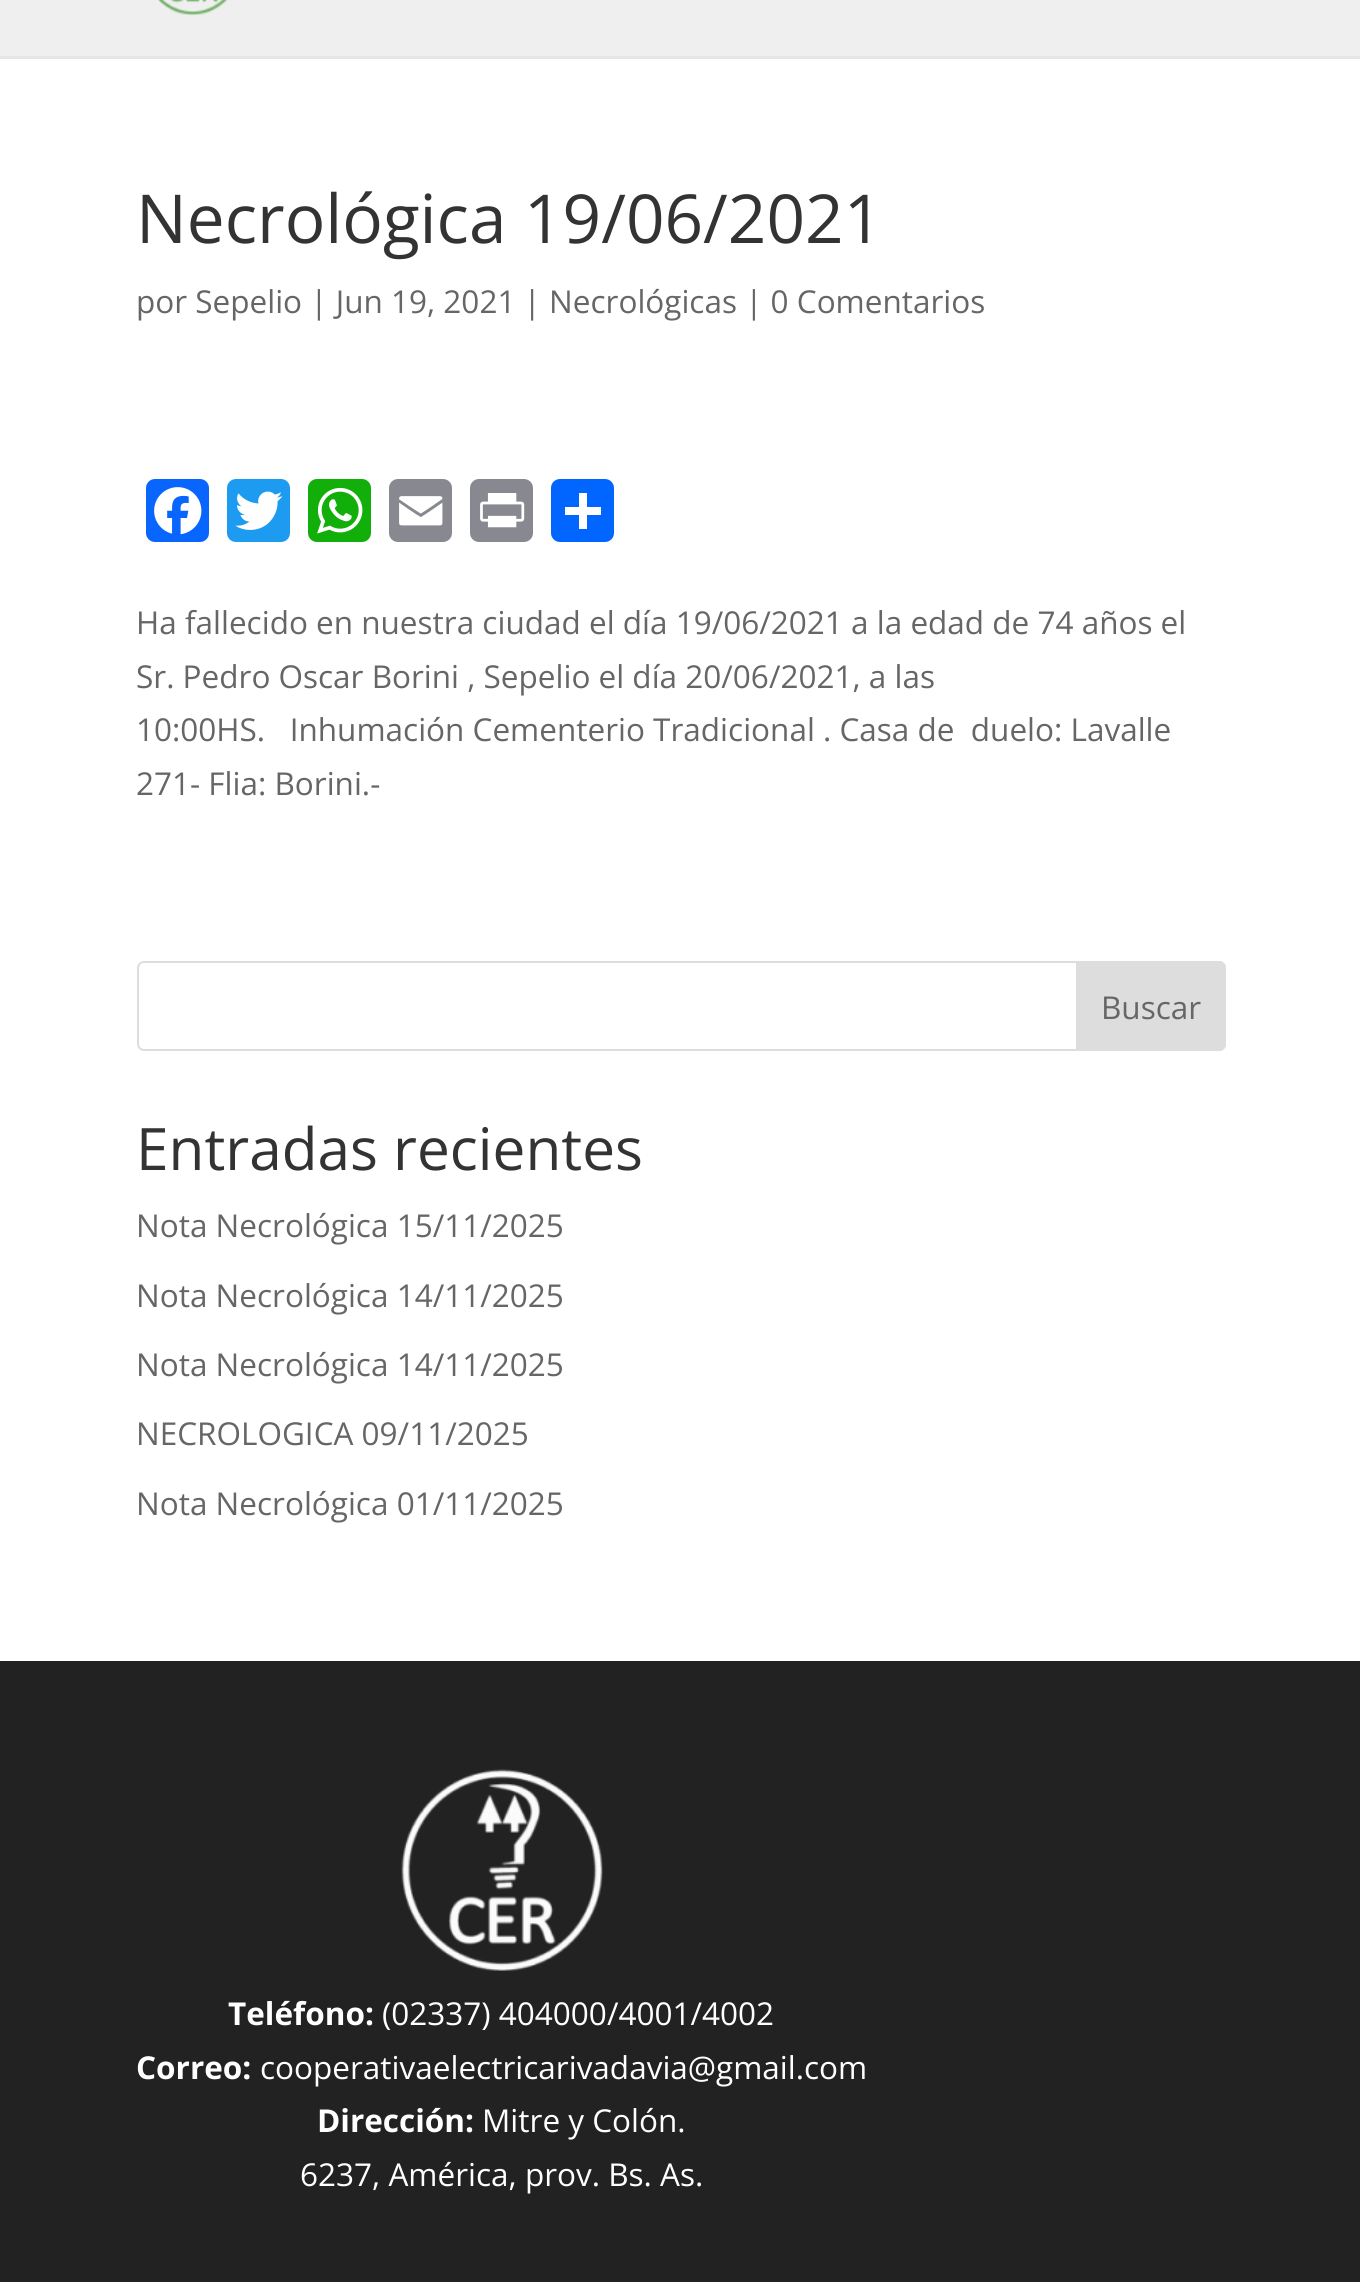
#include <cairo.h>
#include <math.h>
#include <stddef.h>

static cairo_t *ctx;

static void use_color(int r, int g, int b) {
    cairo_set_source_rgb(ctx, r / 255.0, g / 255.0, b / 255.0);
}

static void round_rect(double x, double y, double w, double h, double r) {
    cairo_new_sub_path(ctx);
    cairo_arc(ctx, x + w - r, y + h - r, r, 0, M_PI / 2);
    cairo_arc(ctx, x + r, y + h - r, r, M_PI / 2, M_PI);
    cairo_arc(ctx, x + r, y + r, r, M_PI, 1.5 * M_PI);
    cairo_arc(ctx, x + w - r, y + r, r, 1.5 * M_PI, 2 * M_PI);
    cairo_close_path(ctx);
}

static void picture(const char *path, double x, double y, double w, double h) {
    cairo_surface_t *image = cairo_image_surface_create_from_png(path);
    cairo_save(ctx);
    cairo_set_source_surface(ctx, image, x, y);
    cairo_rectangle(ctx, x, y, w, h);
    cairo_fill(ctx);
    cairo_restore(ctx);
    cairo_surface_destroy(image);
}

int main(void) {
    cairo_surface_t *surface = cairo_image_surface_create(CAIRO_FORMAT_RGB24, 1360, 2282);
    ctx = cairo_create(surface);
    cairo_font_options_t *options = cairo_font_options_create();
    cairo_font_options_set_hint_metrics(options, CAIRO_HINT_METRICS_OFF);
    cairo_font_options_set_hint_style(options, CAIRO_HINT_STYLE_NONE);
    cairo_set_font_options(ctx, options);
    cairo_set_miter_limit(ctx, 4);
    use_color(255, 255, 255);
    cairo_paint(ctx);
    use_color(230, 230, 230);
    cairo_rectangle(ctx, 0, 56, 1360, 3);
    cairo_fill(ctx);
    use_color(239, 239, 239);
    cairo_rectangle(ctx, 0, 0, 1360, 56);
    cairo_fill(ctx);
    picture("img1.png", 157, 0, 71, 15);
    cairo_select_font_face(ctx, "Open Sans", CAIRO_FONT_SLANT_NORMAL, CAIRO_FONT_WEIGHT_NORMAL);
    cairo_set_font_size(ctx, 67.5);
    use_color(51, 51, 51);
    cairo_move_to(ctx, 136, 243);
    cairo_show_text(ctx, "Necrológica 19/06/2021");
    cairo_set_font_size(ctx, 31.5);
    use_color(102, 102, 102);
    cairo_move_to(ctx, 136, 313);
    cairo_show_text(ctx, "por Sepelio | Jun 19, 2021 | Necrológicas | 0 Comentarios");
    use_color(8, 102, 255);
    round_rect(146, 479, 63, 63, 9);
    cairo_fill(ctx);
    picture("img2.png", 154, 487, 48, 48);
    use_color(29, 155, 240);
    round_rect(227, 479, 63, 63, 9);
    cairo_fill(ctx);
    picture("img3.png", 235, 491, 48, 39);
    use_color(18, 175, 10);
    round_rect(308, 479, 63, 63, 9);
    cairo_fill(ctx);
    picture("img4.png", 317, 487, 46, 47);
    use_color(136, 137, 144);
    round_rect(389, 479, 63, 63, 9);
    cairo_fill(ctx);
    picture("img5.png", 399, 496, 44, 30);
    round_rect(470, 479, 63, 63, 9);
    cairo_fill(ctx);
    picture("img6.png", 480, 493, 45, 35);
    use_color(1, 102, 255);
    round_rect(551, 479, 63, 63, 9);
    cairo_fill(ctx);
    use_color(255, 255, 255);
    cairo_rectangle(ctx, 579, 493, 8, 36);
    cairo_fill(ctx);
    cairo_rectangle(ctx, 565, 507, 36, 8);
    cairo_fill(ctx);
    use_color(102, 102, 102);
    cairo_move_to(ctx, 136, 634);
    cairo_show_text(ctx, "Ha fallecido en nuestra ciudad el día 19/06/2021 a la edad de 74 años el");
    cairo_move_to(ctx, 136, 688);
    cairo_show_text(ctx, "Sr. Pedro Oscar Borini , Sepelio el día 20/06/2021, a las");
    cairo_move_to(ctx, 136, 741);
    cairo_show_text(ctx, "10:00HS.   Inhumación Cementerio Tradicional . Casa de  duelo: Lavalle");
    cairo_move_to(ctx, 136, 795);
    cairo_show_text(ctx, "271- Flia: Borini.-");
    round_rect(138, 962, 1087, 88, 6);
    use_color(221, 221, 221);
    cairo_stroke(ctx);
    cairo_new_path(ctx);
    cairo_move_to(ctx, 1077, 962);
    cairo_line_to(ctx, 1219, 962);
    cairo_curve_to(ctx, 1222.5, 962, 1225, 964.5, 1225, 968);
    cairo_line_to(ctx, 1225, 1044);
    cairo_curve_to(ctx, 1225, 1047.5, 1222.5, 1050, 1219, 1050);
    cairo_line_to(ctx, 1077, 1050);
    cairo_close_path(ctx);
    cairo_fill_preserve(ctx);
    cairo_stroke(ctx);
    use_color(102, 102, 102);
    cairo_move_to(ctx, 1101, 1019);
    cairo_show_text(ctx, "Buscar");
    cairo_set_font_size(ctx, 58.5);
    use_color(51, 51, 51);
    cairo_move_to(ctx, 136, 1170);
    cairo_show_text(ctx, "Entradas recientes");
    cairo_set_font_size(ctx, 31.5);
    use_color(102, 102, 102);
    cairo_move_to(ctx, 136, 1237);
    cairo_show_text(ctx, "Nota Necrológica 15/11/2025");
    cairo_move_to(ctx, 136, 1307);
    cairo_show_text(ctx, "Nota Necrológica 14/11/2025");
    cairo_move_to(ctx, 136, 1376);
    cairo_show_text(ctx, "Nota Necrológica 14/11/2025");
    cairo_move_to(ctx, 136, 1445);
    cairo_show_text(ctx, "NECROLOGICA 09/11/2025");
    cairo_move_to(ctx, 136, 1515);
    cairo_show_text(ctx, "Nota Necrológica 01/11/2025");
    use_color(34, 34, 34);
    cairo_rectangle(ctx, 0, 1661, 1360, 621);
    cairo_fill(ctx);
    picture("img7.png", 401, 1769, 202, 202);
    cairo_select_font_face(ctx, "Open Sans", CAIRO_FONT_SLANT_NORMAL, CAIRO_FONT_WEIGHT_BOLD);
    use_color(255, 255, 255);
    cairo_move_to(ctx, 228, 2025);
    cairo_show_text(ctx, "Teléfono:");
    cairo_select_font_face(ctx, "Open Sans", CAIRO_FONT_SLANT_NORMAL, CAIRO_FONT_WEIGHT_NORMAL);
    cairo_move_to(ctx, 382, 2025);
    cairo_show_text(ctx, "(02337) 404000/4001/4002");
    cairo_select_font_face(ctx, "Open Sans", CAIRO_FONT_SLANT_NORMAL, CAIRO_FONT_WEIGHT_BOLD);
    cairo_move_to(ctx, 136, 2079);
    cairo_show_text(ctx, "Correo:");
    cairo_select_font_face(ctx, "Open Sans", CAIRO_FONT_SLANT_NORMAL, CAIRO_FONT_WEIGHT_NORMAL);
    cairo_move_to(ctx, 260, 2079);
    cairo_show_text(ctx, "cooperativaelectricarivadavia@gmail.com");
    cairo_select_font_face(ctx, "Open Sans", CAIRO_FONT_SLANT_NORMAL, CAIRO_FONT_WEIGHT_BOLD);
    cairo_move_to(ctx, 317, 2132);
    cairo_show_text(ctx, "Dirección:");
    cairo_select_font_face(ctx, "Open Sans", CAIRO_FONT_SLANT_NORMAL, CAIRO_FONT_WEIGHT_NORMAL);
    cairo_move_to(ctx, 482, 2132);
    cairo_show_text(ctx, "Mitre y Colón.");
    cairo_move_to(ctx, 300, 2186);
    cairo_show_text(ctx, "6237, América, prov. Bs. As.");
    cairo_surface_write_to_png(surface, "result.png");
    cairo_font_options_destroy(options);
    cairo_destroy(ctx);
    cairo_surface_destroy(surface);
    return 0;
}
